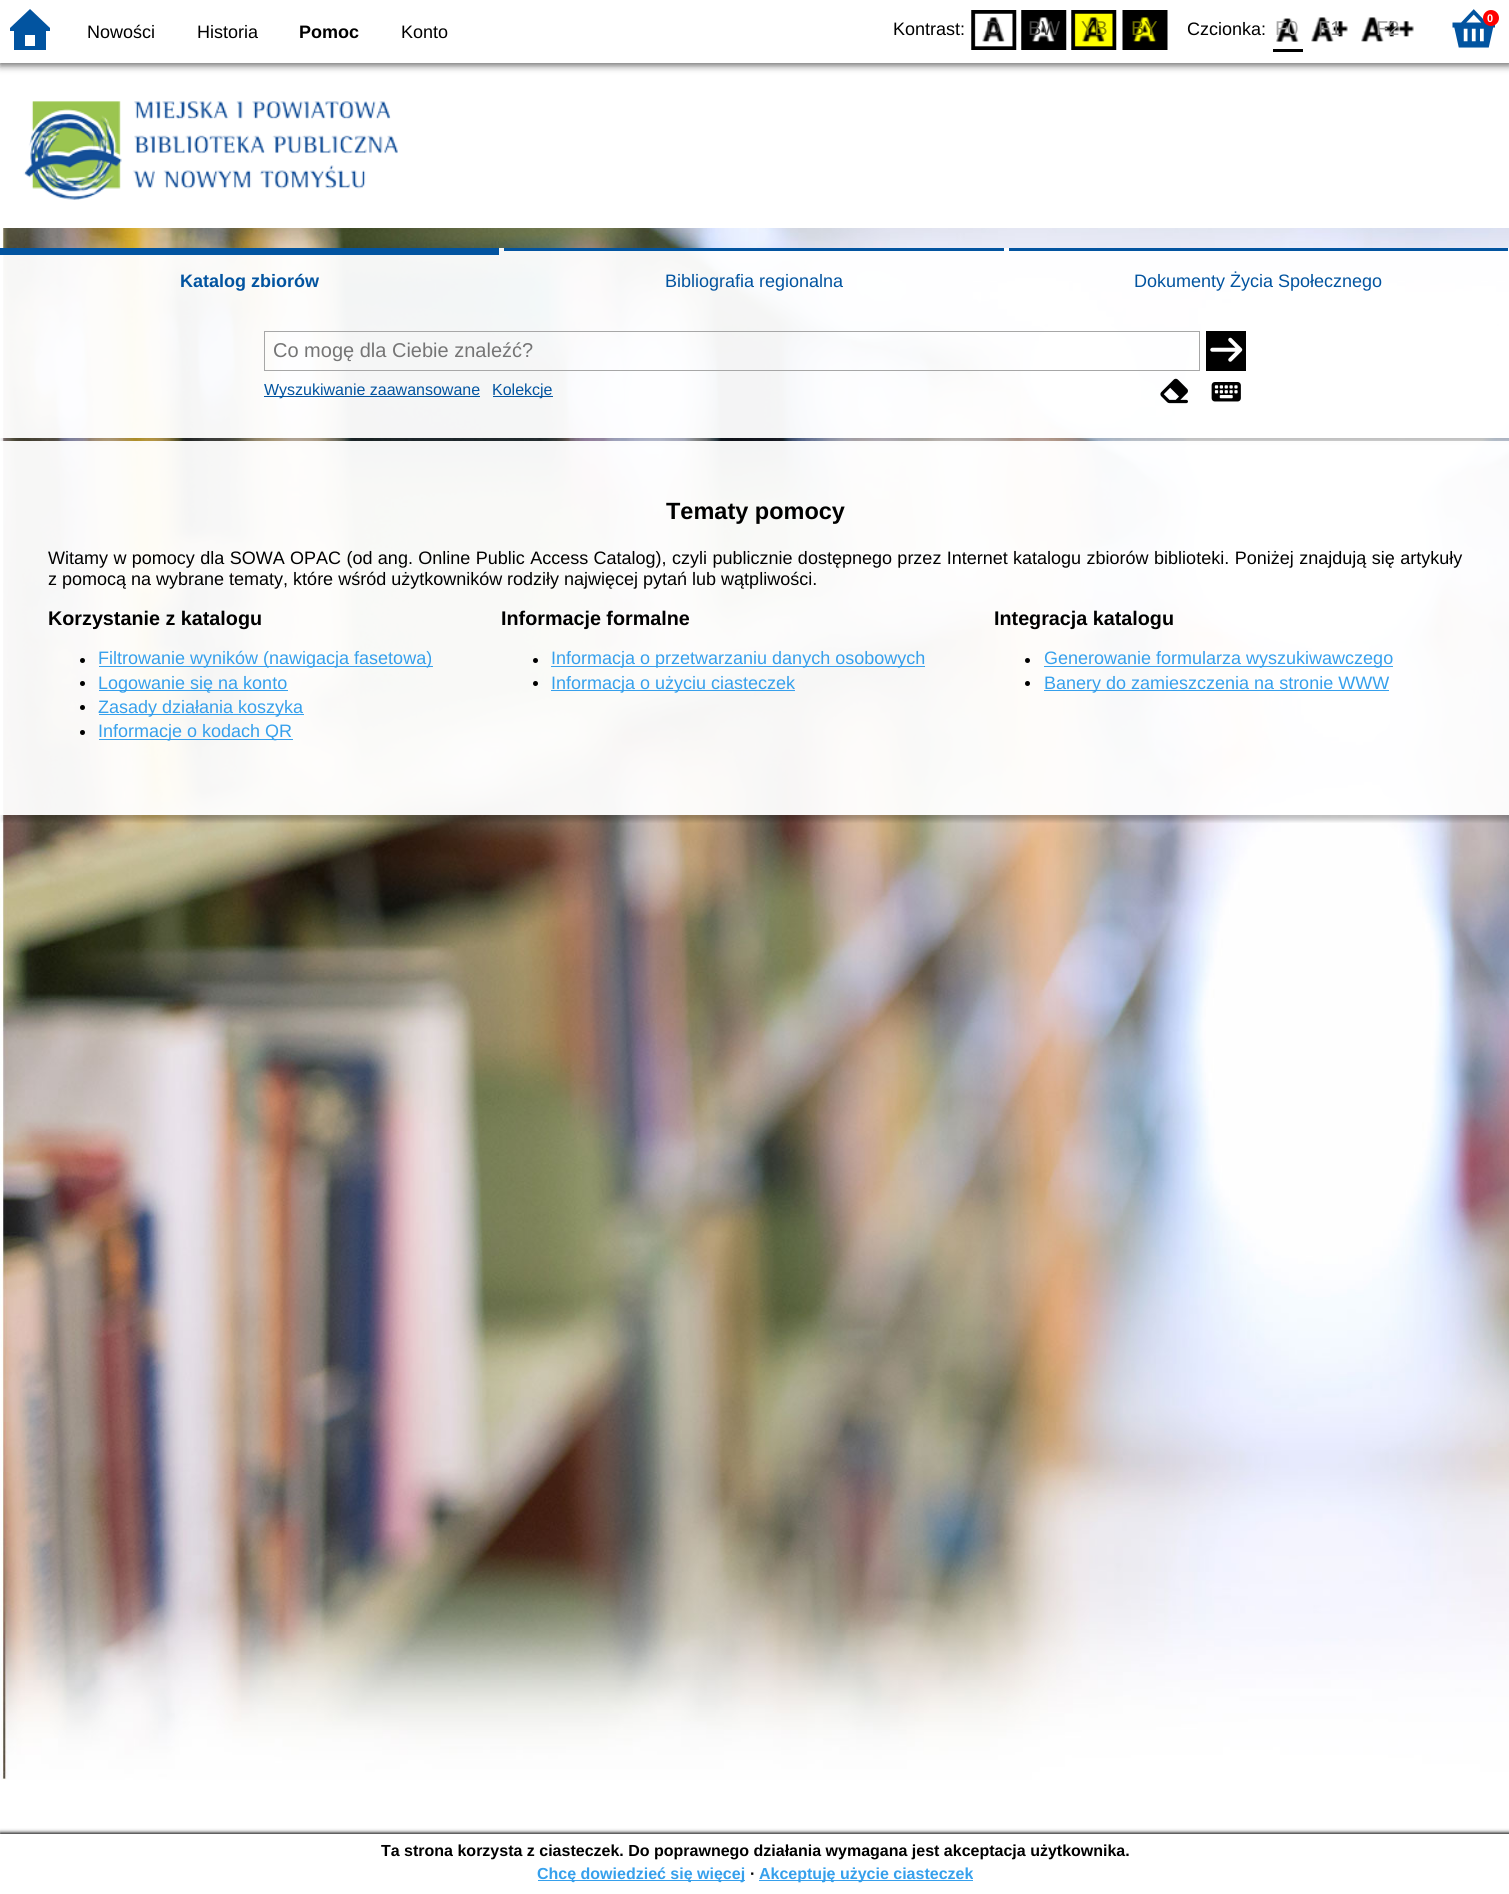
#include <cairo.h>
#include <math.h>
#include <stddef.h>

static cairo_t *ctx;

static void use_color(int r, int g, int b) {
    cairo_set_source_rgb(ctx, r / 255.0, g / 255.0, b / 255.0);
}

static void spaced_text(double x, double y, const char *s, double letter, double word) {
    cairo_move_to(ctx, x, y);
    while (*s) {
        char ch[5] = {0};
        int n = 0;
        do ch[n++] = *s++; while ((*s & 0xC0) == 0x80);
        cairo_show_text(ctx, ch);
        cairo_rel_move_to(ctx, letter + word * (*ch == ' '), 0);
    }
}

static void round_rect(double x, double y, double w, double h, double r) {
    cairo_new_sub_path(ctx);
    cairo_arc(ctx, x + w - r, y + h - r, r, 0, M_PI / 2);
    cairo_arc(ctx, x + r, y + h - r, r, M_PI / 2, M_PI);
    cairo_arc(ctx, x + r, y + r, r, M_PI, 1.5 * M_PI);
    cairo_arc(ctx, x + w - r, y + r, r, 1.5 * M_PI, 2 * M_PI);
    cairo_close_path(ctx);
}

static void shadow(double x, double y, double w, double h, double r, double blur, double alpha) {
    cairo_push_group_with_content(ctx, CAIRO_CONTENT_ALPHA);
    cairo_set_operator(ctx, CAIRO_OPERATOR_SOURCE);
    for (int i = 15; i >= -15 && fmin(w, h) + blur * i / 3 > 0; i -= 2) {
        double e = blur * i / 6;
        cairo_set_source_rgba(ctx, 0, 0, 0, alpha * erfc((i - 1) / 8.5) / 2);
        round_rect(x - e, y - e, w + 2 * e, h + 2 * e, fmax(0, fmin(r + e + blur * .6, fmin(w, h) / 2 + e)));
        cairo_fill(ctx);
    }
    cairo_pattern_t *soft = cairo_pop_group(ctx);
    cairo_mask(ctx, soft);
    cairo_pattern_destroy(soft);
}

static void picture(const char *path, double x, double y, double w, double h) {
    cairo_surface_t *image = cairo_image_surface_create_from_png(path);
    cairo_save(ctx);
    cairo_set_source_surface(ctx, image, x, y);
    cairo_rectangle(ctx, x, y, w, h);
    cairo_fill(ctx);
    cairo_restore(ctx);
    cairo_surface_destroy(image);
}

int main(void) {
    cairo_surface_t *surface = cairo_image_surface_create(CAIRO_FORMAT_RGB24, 1509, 1894);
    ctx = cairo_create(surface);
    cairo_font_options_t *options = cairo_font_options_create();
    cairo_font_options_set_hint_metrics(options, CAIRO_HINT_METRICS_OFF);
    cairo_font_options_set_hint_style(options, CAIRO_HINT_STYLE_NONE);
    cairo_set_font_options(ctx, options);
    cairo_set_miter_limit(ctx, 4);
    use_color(255, 255, 255);
    cairo_paint(ctx);
    picture("img1.png", 0, 228, 1509, 1552);
    use_color(0, 0, 0);
    shadow(0, 3, 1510, 62, 0, 4, 0.65);
    use_color(255, 255, 255);
    cairo_rectangle(ctx, 0, 0, 1509, 63);
    cairo_fill(ctx);
    use_color(2, 84, 160);
    cairo_new_path(ctx);
    cairo_move_to(ctx, 50, 31);
    cairo_line_to(ctx, 46, 31);
    cairo_line_to(ctx, 46, 50);
    cairo_line_to(ctx, 14, 50);
    cairo_line_to(ctx, 14, 31);
    cairo_line_to(ctx, 10, 31);
    cairo_line_to(ctx, 10, 28);
    cairo_line_to(ctx, 30, 9);
    cairo_line_to(ctx, 50, 28);
    cairo_close_path(ctx);
    cairo_move_to(ctx, 35, 46);
    cairo_line_to(ctx, 35, 35);
    cairo_line_to(ctx, 25, 35);
    cairo_line_to(ctx, 25, 46);
    cairo_close_path(ctx);
    cairo_fill(ctx);
    cairo_select_font_face(ctx, "Liberation Sans", CAIRO_FONT_SLANT_NORMAL, CAIRO_FONT_WEIGHT_NORMAL);
    cairo_set_font_size(ctx, 18);
    use_color(0, 0, 0);
    cairo_move_to(ctx, 87, 38);
    cairo_show_text(ctx, "Nowości");
    cairo_move_to(ctx, 197, 38);
    cairo_show_text(ctx, "Historia");
    cairo_select_font_face(ctx, "Liberation Sans", CAIRO_FONT_SLANT_NORMAL, CAIRO_FONT_WEIGHT_BOLD);
    cairo_move_to(ctx, 299, 38);
    cairo_show_text(ctx, "Pomoc");
    cairo_select_font_face(ctx, "Liberation Sans", CAIRO_FONT_SLANT_NORMAL, CAIRO_FONT_WEIGHT_NORMAL);
    cairo_move_to(ctx, 401, 38);
    cairo_show_text(ctx, "Konto");
    picture("img2.png", 1452, 9, 43, 39);
    use_color(255, 0, 0);
    cairo_arc(ctx, 1491, 18, 8, 0, 2 * M_PI);
    cairo_fill(ctx);
    cairo_select_font_face(ctx, "Liberation Sans", CAIRO_FONT_SLANT_NORMAL, CAIRO_FONT_WEIGHT_BOLD);
    cairo_set_font_size(ctx, 11);
    use_color(255, 255, 255);
    cairo_move_to(ctx, 1487, 22);
    cairo_show_text(ctx, "0");
    cairo_select_font_face(ctx, "Liberation Sans", CAIRO_FONT_SLANT_NORMAL, CAIRO_FONT_WEIGHT_NORMAL);
    cairo_set_font_size(ctx, 18);
    use_color(0, 0, 0);
    cairo_move_to(ctx, 893, 35);
    cairo_show_text(ctx, "Kontrast:");
    picture("img3.png", 971, 10, 46, 40);
    cairo_set_font_size(ctx, 20);
    use_color(52, 52, 52);
    cairo_move_to(ctx, 986, 35);
    cairo_show_text(ctx, "D");
    picture("img4.png", 1021, 10, 46, 40);
    use_color(73, 73, 73);
    cairo_move_to(ctx, 1028, 35);
    cairo_show_text(ctx, "BW");
    picture("img5.png", 1071, 10, 46, 40);
    use_color(137, 137, 0);
    cairo_move_to(ctx, 1081, 35);
    cairo_show_text(ctx, "YB");
    picture("img6.png", 1122, 10, 46, 40);
    use_color(113, 113, 0);
    cairo_move_to(ctx, 1131, 35);
    cairo_show_text(ctx, "BY");
    cairo_set_font_size(ctx, 18);
    use_color(0, 0, 0);
    cairo_move_to(ctx, 1187, 35);
    cairo_show_text(ctx, "Czcionka:");
    picture("img7.png", 1276, 18, 23, 24);
    cairo_rectangle(ctx, 1273, 49, 30, 3);
    cairo_fill(ctx);
    cairo_set_font_size(ctx, 20);
    use_color(168, 168, 168);
    cairo_move_to(ctx, 1275, 35);
    cairo_show_text(ctx, "F0");
    picture("img8.png", 1311, 17, 37, 25);
    use_color(126, 126, 126);
    cairo_move_to(ctx, 1318, 35);
    cairo_show_text(ctx, "F1");
    picture("img9.png", 1361, 17, 53, 25);
    use_color(152, 152, 152);
    cairo_move_to(ctx, 1376, 35);
    cairo_show_text(ctx, "F2");
    picture("img10.png", 23, 101, 375, 99);
    cairo_save(ctx);
    cairo_set_fill_rule(ctx, CAIRO_FILL_RULE_EVEN_ODD);
    cairo_new_path(ctx);
    cairo_move_to(ctx, 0, 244);
    cairo_line_to(ctx, 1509, 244);
    cairo_line_to(ctx, 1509, 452);
    cairo_line_to(ctx, 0, 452);
    cairo_close_path(ctx);
    cairo_move_to(ctx, 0, 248);
    cairo_line_to(ctx, 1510, 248);
    cairo_line_to(ctx, 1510, 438);
    cairo_line_to(ctx, 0, 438);
    cairo_close_path(ctx);
    cairo_clip(ctx);
    use_color(0, 0, 0);
    shadow(3, 253, 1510, 190, 0, 2.5, 0.25);
    cairo_restore(ctx);
    cairo_set_source_rgba(ctx, 1, 1, 1, 0.95);
    cairo_rectangle(ctx, 0, 248, 1509, 190);
    cairo_fill(ctx);
    use_color(2, 84, 160);
    cairo_rectangle(ctx, 0, 248, 499, 7);
    cairo_fill(ctx);
    cairo_select_font_face(ctx, "Liberation Sans", CAIRO_FONT_SLANT_NORMAL, CAIRO_FONT_WEIGHT_BOLD);
    cairo_set_font_size(ctx, 18);
    cairo_move_to(ctx, 180, 287);
    cairo_show_text(ctx, "Katalog zbiorów");
    cairo_rectangle(ctx, 504, 248, 500, 3);
    cairo_fill(ctx);
    cairo_select_font_face(ctx, "Liberation Sans", CAIRO_FONT_SLANT_NORMAL, CAIRO_FONT_WEIGHT_NORMAL);
    cairo_move_to(ctx, 665, 287);
    cairo_show_text(ctx, "Bibliografia regionalna");
    cairo_rectangle(ctx, 1009, 248, 499, 3);
    cairo_fill(ctx);
    cairo_move_to(ctx, 1134, 287);
    cairo_show_text(ctx, "Dokumenty Życia Społecznego");
    cairo_rectangle(ctx, 264.5, 331.5, 935, 39);
    use_color(167, 167, 167);
    cairo_set_line_width(ctx, 1);
    cairo_stroke(ctx);
    cairo_set_font_size(ctx, 20);
    use_color(117, 117, 117);
    cairo_move_to(ctx, 273, 357);
    cairo_show_text(ctx, "Co mogę dla Ciebie znaleźć?");
    use_color(0, 0, 0);
    cairo_rectangle(ctx, 1206, 331, 40, 40);
    cairo_fill(ctx);
    picture("img11.png", 1210, 337, 33, 25);
    use_color(2, 84, 160);
    cairo_rectangle(ctx, 264, 396, 216, 1);
    cairo_fill(ctx);
    cairo_set_font_size(ctx, 16);
    cairo_move_to(ctx, 264, 395);
    cairo_show_text(ctx, "Wyszukiwanie zaawansowane");
    cairo_rectangle(ctx, 493, 396, 60, 1);
    cairo_fill(ctx);
    cairo_move_to(ctx, 492, 395);
    cairo_show_text(ctx, "Kolekcje");
    picture("img12.png", 1160, 378, 28, 26);
    picture("img13.png", 1211, 382, 30, 20);
    cairo_save(ctx);
    cairo_rectangle(ctx, 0, 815, 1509, 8);
    cairo_clip(ctx);
    use_color(0, 0, 0);
    shadow(3, 446, 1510, 374, 0, 2.5, 0.25);
    cairo_restore(ctx);
    cairo_set_source_rgba(ctx, 1, 1, 1, 0.95);
    cairo_rectangle(ctx, 0, 441, 1509, 374);
    cairo_fill(ctx);
    cairo_select_font_face(ctx, "Liberation Sans", CAIRO_FONT_SLANT_NORMAL, CAIRO_FONT_WEIGHT_BOLD);
    cairo_set_font_size(ctx, 23.5);
    use_color(0, 0, 0);
    cairo_move_to(ctx, 666, 519);
    cairo_show_text(ctx, "Tematy pomocy");
    cairo_select_font_face(ctx, "Liberation Sans", CAIRO_FONT_SLANT_NORMAL, CAIRO_FONT_WEIGHT_NORMAL);
    cairo_set_font_size(ctx, 18);
    spaced_text(48, 564, "Witamy w pomocy dla SOWA OPAC (od ang. Online Public Access Catalog), czyli publicznie dostępnego przez Internet", 0, 0.4);
    spaced_text(1013, 564, "katalogu zbiorów biblioteki. Poniżej znajdują się artykuły", 0, 0.5);
    cairo_move_to(ctx, 48, 585);
    cairo_show_text(ctx, "z pomocą na wybrane tematy, które wśród użytkowników");
    cairo_move_to(ctx, 507, 585);
    cairo_show_text(ctx, "rodziły najwięcej pytań lub wątpliwości.");
    cairo_select_font_face(ctx, "Liberation Sans", CAIRO_FONT_SLANT_NORMAL, CAIRO_FONT_WEIGHT_BOLD);
    cairo_set_font_size(ctx, 19.75);
    cairo_move_to(ctx, 48, 625);
    cairo_show_text(ctx, "Korzystanie z katalogu");
    cairo_new_path(ctx);
    cairo_arc(ctx, 82.5, 660.5, 2.5, 0, 2 * M_PI);
    cairo_fill(ctx);
    use_color(54, 160, 236);
    cairo_rectangle(ctx, 99, 666, 334, 1);
    cairo_fill(ctx);
    cairo_select_font_face(ctx, "Liberation Sans", CAIRO_FONT_SLANT_NORMAL, CAIRO_FONT_WEIGHT_NORMAL);
    cairo_set_font_size(ctx, 18);
    cairo_move_to(ctx, 98, 664);
    cairo_show_text(ctx, "Filtrowanie wyników (nawigacja fasetowa)");
    use_color(0, 0, 0);
    cairo_new_path(ctx);
    cairo_arc(ctx, 82.5, 683.5, 2.5, 0, 2 * M_PI);
    cairo_fill(ctx);
    use_color(54, 160, 236);
    cairo_rectangle(ctx, 99, 690, 189, 1);
    cairo_fill(ctx);
    cairo_move_to(ctx, 98, 689);
    cairo_show_text(ctx, "Logowanie się na konto");
    use_color(0, 0, 0);
    cairo_new_path(ctx);
    cairo_arc(ctx, 82.5, 707.5, 2.5, 0, 2 * M_PI);
    cairo_fill(ctx);
    use_color(54, 160, 236);
    cairo_rectangle(ctx, 99, 714, 205, 1);
    cairo_fill(ctx);
    cairo_move_to(ctx, 98, 713);
    cairo_show_text(ctx, "Zasady działania koszyka");
    use_color(0, 0, 0);
    cairo_new_path(ctx);
    cairo_arc(ctx, 82.5, 732.5, 2.5, 0, 2 * M_PI);
    cairo_fill(ctx);
    use_color(54, 160, 236);
    cairo_rectangle(ctx, 99, 739, 194, 1);
    cairo_fill(ctx);
    cairo_move_to(ctx, 98, 737);
    cairo_show_text(ctx, "Informacje o kodach QR");
    cairo_select_font_face(ctx, "Liberation Sans", CAIRO_FONT_SLANT_NORMAL, CAIRO_FONT_WEIGHT_BOLD);
    cairo_set_font_size(ctx, 19.75);
    use_color(0, 0, 0);
    cairo_move_to(ctx, 501, 625);
    cairo_show_text(ctx, "Informacje formalne");
    cairo_new_path(ctx);
    cairo_arc(ctx, 535.5, 660.5, 2.5, 0, 2 * M_PI);
    cairo_fill(ctx);
    use_color(54, 160, 236);
    cairo_rectangle(ctx, 551, 666, 374, 1);
    cairo_fill(ctx);
    cairo_select_font_face(ctx, "Liberation Sans", CAIRO_FONT_SLANT_NORMAL, CAIRO_FONT_WEIGHT_NORMAL);
    cairo_set_font_size(ctx, 18);
    cairo_move_to(ctx, 551, 664);
    cairo_show_text(ctx, "Informacja o przetwarzaniu danych osobowych");
    use_color(0, 0, 0);
    cairo_new_path(ctx);
    cairo_arc(ctx, 535.5, 683.5, 2.5, 0, 2 * M_PI);
    cairo_fill(ctx);
    use_color(54, 160, 236);
    cairo_rectangle(ctx, 551, 690, 244, 1);
    cairo_fill(ctx);
    cairo_move_to(ctx, 551, 689);
    cairo_show_text(ctx, "Informacja o użyciu ciasteczek");
    cairo_select_font_face(ctx, "Liberation Sans", CAIRO_FONT_SLANT_NORMAL, CAIRO_FONT_WEIGHT_BOLD);
    cairo_set_font_size(ctx, 19.75);
    use_color(0, 0, 0);
    cairo_move_to(ctx, 994, 625);
    cairo_show_text(ctx, "Integracja katalogu");
    cairo_new_path(ctx);
    cairo_arc(ctx, 1027.5, 660.5, 2.5, 0, 2 * M_PI);
    cairo_fill(ctx);
    use_color(54, 160, 236);
    cairo_rectangle(ctx, 1044, 666, 349, 1);
    cairo_fill(ctx);
    cairo_select_font_face(ctx, "Liberation Sans", CAIRO_FONT_SLANT_NORMAL, CAIRO_FONT_WEIGHT_NORMAL);
    cairo_set_font_size(ctx, 18);
    cairo_move_to(ctx, 1044, 664);
    cairo_show_text(ctx, "Generowanie formularza wyszukiwawczego");
    use_color(0, 0, 0);
    cairo_new_path(ctx);
    cairo_arc(ctx, 1027.5, 683.5, 2.5, 0, 2 * M_PI);
    cairo_fill(ctx);
    use_color(54, 160, 236);
    cairo_rectangle(ctx, 1044, 690, 345, 1);
    cairo_fill(ctx);
    cairo_move_to(ctx, 1044, 689);
    cairo_show_text(ctx, "Banery do zamieszczenia na stronie WWW");
    use_color(0, 0, 0);
    shadow(0, 1838, 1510, 55, 0, 4, 0.65);
    shadow(0, 1833, 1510, 61, 0, 2, 1);
    use_color(255, 255, 255);
    cairo_rectangle(ctx, 0, 1834, 1509, 60);
    cairo_fill(ctx);
    cairo_select_font_face(ctx, "Liberation Sans", CAIRO_FONT_SLANT_NORMAL, CAIRO_FONT_WEIGHT_BOLD);
    cairo_set_font_size(ctx, 16);
    use_color(0, 0, 0);
    cairo_move_to(ctx, 381, 1856);
    cairo_show_text(ctx, "Ta strona korzysta z ciasteczek. Do poprawnego działania wymagana jest akceptacja użytkownika.");
    use_color(54, 160, 236);
    cairo_rectangle(ctx, 538, 1880, 207, 1);
    cairo_fill(ctx);
    cairo_move_to(ctx, 537, 1879);
    cairo_show_text(ctx, "Chcę dowiedzieć się więcej");
    use_color(0, 0, 0);
    cairo_move_to(ctx, 750, 1879);
    cairo_show_text(ctx, "∙");
    use_color(54, 160, 236);
    cairo_rectangle(ctx, 759, 1880, 214, 1);
    cairo_fill(ctx);
    cairo_move_to(ctx, 759, 1879);
    cairo_show_text(ctx, "Akceptuję użycie ciasteczek");
    cairo_surface_write_to_png(surface, "result.png");
    cairo_font_options_destroy(options);
    cairo_destroy(ctx);
    cairo_surface_destroy(surface);
    return 0;
}
